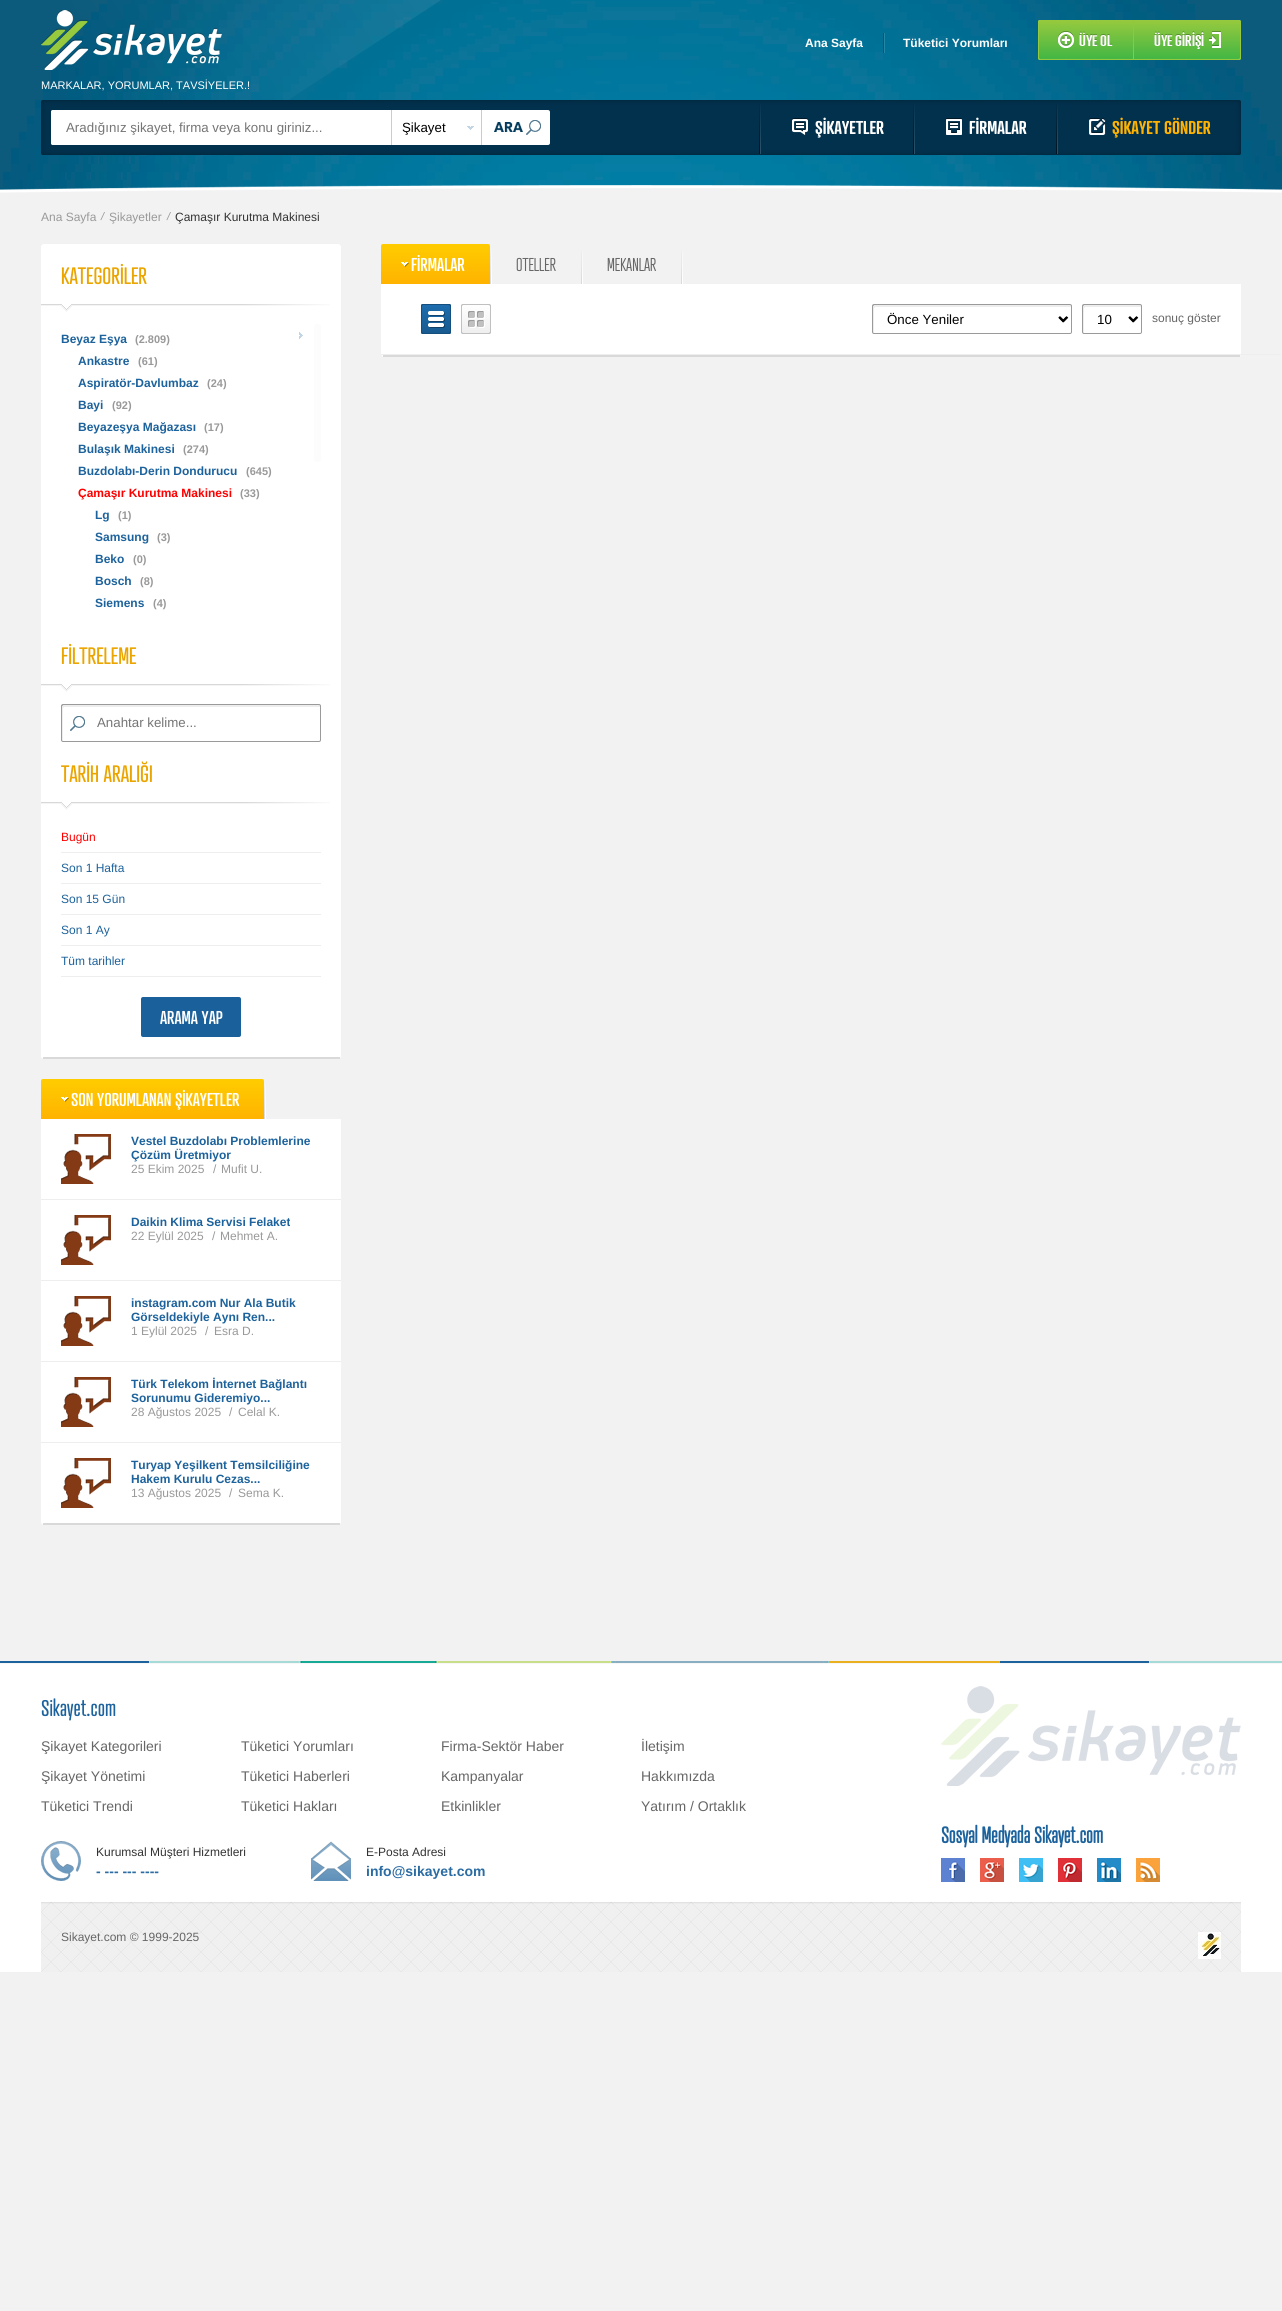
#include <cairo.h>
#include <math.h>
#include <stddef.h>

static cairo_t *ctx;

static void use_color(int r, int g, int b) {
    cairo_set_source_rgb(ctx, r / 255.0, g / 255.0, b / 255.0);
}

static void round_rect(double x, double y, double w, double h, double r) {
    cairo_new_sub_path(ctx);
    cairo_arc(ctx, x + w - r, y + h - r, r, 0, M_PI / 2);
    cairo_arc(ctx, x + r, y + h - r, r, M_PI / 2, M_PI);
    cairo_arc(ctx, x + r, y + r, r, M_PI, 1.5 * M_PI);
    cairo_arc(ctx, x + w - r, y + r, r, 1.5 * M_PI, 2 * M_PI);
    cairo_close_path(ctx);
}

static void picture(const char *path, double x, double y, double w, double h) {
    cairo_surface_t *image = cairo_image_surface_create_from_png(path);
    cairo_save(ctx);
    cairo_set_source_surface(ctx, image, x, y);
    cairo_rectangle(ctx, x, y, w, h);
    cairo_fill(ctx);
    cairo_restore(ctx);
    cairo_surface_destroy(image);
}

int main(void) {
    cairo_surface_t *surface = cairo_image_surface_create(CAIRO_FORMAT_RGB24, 1282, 2311);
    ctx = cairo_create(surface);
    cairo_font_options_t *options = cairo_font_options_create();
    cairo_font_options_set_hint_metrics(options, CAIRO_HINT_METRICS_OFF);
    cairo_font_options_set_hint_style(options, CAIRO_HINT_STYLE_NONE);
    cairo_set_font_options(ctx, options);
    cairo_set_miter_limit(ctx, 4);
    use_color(242, 242, 242);
    cairo_paint(ctx);
    picture("img1.png", 0, 0, 1282, 193);
    picture("img2.png", 41, 10, 181, 60);
    cairo_select_font_face(ctx, "Liberation Sans", CAIRO_FONT_SLANT_NORMAL, CAIRO_FONT_WEIGHT_BOLD);
    cairo_set_font_size(ctx, 12);
    use_color(255, 255, 255);
    cairo_move_to(ctx, 805, 47);
    cairo_show_text(ctx, "Ana Sayfa");
    picture("img3.png", 883, 33, 2, 20);
    cairo_move_to(ctx, 903, 47);
    cairo_show_text(ctx, "Tüketici Yorumları");
    picture("img4.png", 1038, 20, 203, 40);
    cairo_select_font_face(ctx, "Liberation Sans", CAIRO_FONT_SLANT_NORMAL, CAIRO_FONT_WEIGHT_NORMAL);
    cairo_set_font_size(ctx, 11);
    cairo_move_to(ctx, 41, 89);
    cairo_show_text(ctx, "MARKALAR, YORUMLAR, TAVSİYELER.!");
    picture("img5.png", 41, 100, 1200, 55);
    round_rect(51, 110, 499, 35, 2);
    cairo_fill(ctx);
    cairo_new_path(ctx);
    cairo_move_to(ctx, 53, 110);
    cairo_line_to(ctx, 392, 110);
    cairo_line_to(ctx, 392, 145);
    cairo_line_to(ctx, 53, 145);
    cairo_curve_to(ctx, 52, 145, 51, 144, 51, 143);
    cairo_line_to(ctx, 51, 112);
    cairo_curve_to(ctx, 51, 111, 52, 110, 53, 110);
    cairo_close_path(ctx);
    cairo_fill(ctx);
    use_color(204, 204, 204);
    cairo_rectangle(ctx, 391, 110, 1, 35);
    cairo_fill(ctx);
    cairo_set_font_size(ctx, 13.3);
    use_color(117, 117, 117);
    cairo_move_to(ctx, 66, 132);
    cairo_show_text(ctx, "Aradığınız şikayet, firma veya konu giriniz...");
    picture("img6.png", 467, 126, 7, 4);
    use_color(0, 0, 0);
    cairo_move_to(ctx, 402, 132);
    cairo_show_text(ctx, "Şikayet");
    picture("img7.png", 494, 120, 47, 15);
    use_color(204, 204, 204);
    cairo_rectangle(ctx, 481, 110, 1, 35);
    cairo_fill(ctx);
    picture("img8.png", 759, 104, 2, 50);
    picture("img9.png", 792, 118, 16, 17);
    cairo_select_font_face(ctx, "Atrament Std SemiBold", CAIRO_FONT_SLANT_NORMAL, CAIRO_FONT_WEIGHT_NORMAL);
    cairo_set_font_size(ctx, 18);
    use_color(255, 255, 255);
    cairo_move_to(ctx, 815, 134);
    cairo_show_text(ctx, "ŞİKAYETLER");
    picture("img8.png", 913, 104, 2, 50);
    picture("img10.png", 946, 118, 16, 17);
    cairo_move_to(ctx, 969, 134);
    cairo_show_text(ctx, "FİRMALAR");
    picture("img8.png", 1056, 104, 2, 50);
    picture("img11.png", 1089, 118, 17, 17);
    use_color(255, 179, 0);
    cairo_move_to(ctx, 1112, 134);
    cairo_show_text(ctx, "ŞİKAYET GÖNDER");
    cairo_select_font_face(ctx, "Liberation Sans", CAIRO_FONT_SLANT_NORMAL, CAIRO_FONT_WEIGHT_NORMAL);
    cairo_set_font_size(ctx, 12);
    use_color(153, 153, 153);
    cairo_move_to(ctx, 41, 221);
    cairo_show_text(ctx, "Ana Sayfa");
    cairo_select_font_face(ctx, "Liberation Sans", CAIRO_FONT_SLANT_ITALIC, CAIRO_FONT_WEIGHT_NORMAL);
    cairo_set_font_size(ctx, 11);
    cairo_move_to(ctx, 101, 220);
    cairo_show_text(ctx, "/");
    cairo_select_font_face(ctx, "Liberation Sans", CAIRO_FONT_SLANT_NORMAL, CAIRO_FONT_WEIGHT_NORMAL);
    cairo_set_font_size(ctx, 12);
    cairo_move_to(ctx, 109, 221);
    cairo_show_text(ctx, "Şikayetler");
    cairo_select_font_face(ctx, "Liberation Sans", CAIRO_FONT_SLANT_ITALIC, CAIRO_FONT_WEIGHT_NORMAL);
    cairo_set_font_size(ctx, 11);
    cairo_move_to(ctx, 167, 220);
    cairo_show_text(ctx, "/");
    cairo_select_font_face(ctx, "Liberation Sans", CAIRO_FONT_SLANT_NORMAL, CAIRO_FONT_WEIGHT_NORMAL);
    cairo_set_font_size(ctx, 12);
    use_color(51, 51, 51);
    cairo_move_to(ctx, 175, 221);
    cairo_show_text(ctx, "Çamaşır Kurutma Makinesi");
    use_color(255, 255, 255);
    round_rect(41, 244, 300, 815, 3);
    cairo_fill(ctx);
    use_color(217, 217, 217);
    cairo_rectangle(ctx, 43, 1057, 297, 2);
    cairo_fill(ctx);
    picture("img12.png", 41, 304, 289, 8);
    cairo_select_font_face(ctx, "Atrament Std", CAIRO_FONT_SLANT_NORMAL, CAIRO_FONT_WEIGHT_NORMAL);
    cairo_set_font_size(ctx, 23);
    use_color(235, 165, 0);
    cairo_move_to(ctx, 61, 284);
    cairo_show_text(ctx, "KATEGORİLER");
    picture("img13.png", 299, 332, 4, 7);
    cairo_select_font_face(ctx, "Liberation Sans", CAIRO_FONT_SLANT_NORMAL, CAIRO_FONT_WEIGHT_BOLD);
    cairo_set_font_size(ctx, 12);
    use_color(28, 98, 156);
    cairo_move_to(ctx, 61, 343);
    cairo_show_text(ctx, "Beyaz Eşya");
    cairo_set_font_size(ctx, 11);
    use_color(153, 153, 153);
    cairo_move_to(ctx, 135, 343);
    cairo_show_text(ctx, "(2.809)");
    cairo_set_font_size(ctx, 12);
    use_color(28, 98, 156);
    cairo_move_to(ctx, 78, 365);
    cairo_show_text(ctx, "Ankastre");
    cairo_set_font_size(ctx, 11);
    use_color(153, 153, 153);
    cairo_move_to(ctx, 138, 365);
    cairo_show_text(ctx, "(61)");
    cairo_set_font_size(ctx, 12);
    use_color(28, 98, 156);
    cairo_move_to(ctx, 78, 387);
    cairo_show_text(ctx, "Aspiratör-Davlumbaz");
    cairo_set_font_size(ctx, 11);
    use_color(153, 153, 153);
    cairo_move_to(ctx, 207, 387);
    cairo_show_text(ctx, "(24)");
    cairo_set_font_size(ctx, 12);
    use_color(28, 98, 156);
    cairo_move_to(ctx, 78, 409);
    cairo_show_text(ctx, "Bayi");
    cairo_set_font_size(ctx, 11);
    use_color(153, 153, 153);
    cairo_move_to(ctx, 112, 409);
    cairo_show_text(ctx, "(92)");
    cairo_set_font_size(ctx, 12);
    use_color(28, 98, 156);
    cairo_move_to(ctx, 78, 431);
    cairo_show_text(ctx, "Beyazeşya Mağazası");
    cairo_set_font_size(ctx, 11);
    use_color(153, 153, 153);
    cairo_move_to(ctx, 204, 431);
    cairo_show_text(ctx, "(17)");
    cairo_set_font_size(ctx, 12);
    use_color(28, 98, 156);
    cairo_move_to(ctx, 78, 453);
    cairo_show_text(ctx, "Bulaşık Makinesi");
    cairo_set_font_size(ctx, 11);
    use_color(153, 153, 153);
    cairo_move_to(ctx, 183, 453);
    cairo_show_text(ctx, "(274)");
    cairo_set_font_size(ctx, 12);
    use_color(28, 98, 156);
    cairo_move_to(ctx, 78, 475);
    cairo_show_text(ctx, "Buzdolabı-Derin Dondurucu");
    cairo_set_font_size(ctx, 11);
    use_color(153, 153, 153);
    cairo_move_to(ctx, 246, 475);
    cairo_show_text(ctx, "(645)");
    cairo_set_font_size(ctx, 12);
    use_color(255, 0, 0);
    cairo_move_to(ctx, 78, 497);
    cairo_show_text(ctx, "Çamaşır Kurutma Makinesi");
    cairo_set_font_size(ctx, 11);
    use_color(153, 153, 153);
    cairo_move_to(ctx, 240, 497);
    cairo_show_text(ctx, "(33)");
    cairo_set_font_size(ctx, 12);
    use_color(28, 98, 156);
    cairo_move_to(ctx, 95, 519);
    cairo_show_text(ctx, "Lg");
    cairo_set_font_size(ctx, 11);
    use_color(153, 153, 153);
    cairo_move_to(ctx, 118, 519);
    cairo_show_text(ctx, "(1)");
    cairo_set_font_size(ctx, 12);
    use_color(28, 98, 156);
    cairo_move_to(ctx, 95, 541);
    cairo_show_text(ctx, "Samsung");
    cairo_set_font_size(ctx, 11);
    use_color(153, 153, 153);
    cairo_move_to(ctx, 157, 541);
    cairo_show_text(ctx, "(3)");
    cairo_set_font_size(ctx, 12);
    use_color(28, 98, 156);
    cairo_move_to(ctx, 95, 563);
    cairo_show_text(ctx, "Beko");
    cairo_set_font_size(ctx, 11);
    use_color(153, 153, 153);
    cairo_move_to(ctx, 133, 563);
    cairo_show_text(ctx, "(0)");
    cairo_set_font_size(ctx, 12);
    use_color(28, 98, 156);
    cairo_move_to(ctx, 95, 585);
    cairo_show_text(ctx, "Bosch");
    cairo_set_font_size(ctx, 11);
    use_color(153, 153, 153);
    cairo_move_to(ctx, 140, 585);
    cairo_show_text(ctx, "(8)");
    cairo_set_font_size(ctx, 12);
    use_color(28, 98, 156);
    cairo_move_to(ctx, 95, 607);
    cairo_show_text(ctx, "Siemens");
    cairo_set_font_size(ctx, 11);
    use_color(153, 153, 153);
    cairo_move_to(ctx, 153, 607);
    cairo_show_text(ctx, "(4)");
    use_color(252, 252, 252);
    round_rect(314, 324, 7, 138, 3);
    cairo_fill(ctx);
    picture("img12.png", 41, 684, 289, 8);
    cairo_select_font_face(ctx, "Atrament Std", CAIRO_FONT_SLANT_NORMAL, CAIRO_FONT_WEIGHT_NORMAL);
    cairo_set_font_size(ctx, 23);
    use_color(235, 165, 0);
    cairo_move_to(ctx, 61, 664);
    cairo_show_text(ctx, "FİLTRELEME");
    picture("img14.png", 62, 705, 259, 37);
    round_rect(61.5, 704.5, 259, 37, 1.5);
    use_color(154, 154, 154);
    cairo_set_line_width(ctx, 1);
    cairo_stroke(ctx);
    cairo_select_font_face(ctx, "Liberation Sans", CAIRO_FONT_SLANT_NORMAL, CAIRO_FONT_WEIGHT_NORMAL);
    cairo_set_font_size(ctx, 13.3);
    use_color(117, 117, 117);
    cairo_move_to(ctx, 97, 727);
    cairo_show_text(ctx, "Anahtar kelime...");
    picture("img12.png", 41, 802, 289, 8);
    cairo_select_font_face(ctx, "Atrament Std", CAIRO_FONT_SLANT_NORMAL, CAIRO_FONT_WEIGHT_NORMAL);
    cairo_set_font_size(ctx, 23);
    use_color(235, 165, 0);
    cairo_move_to(ctx, 61, 782);
    cairo_show_text(ctx, "TARİH ARALIĞI");
    use_color(238, 238, 238);
    cairo_rectangle(ctx, 61, 852, 260, 1);
    cairo_fill(ctx);
    cairo_select_font_face(ctx, "Liberation Sans", CAIRO_FONT_SLANT_NORMAL, CAIRO_FONT_WEIGHT_NORMAL);
    cairo_set_font_size(ctx, 12);
    use_color(255, 0, 0);
    cairo_move_to(ctx, 61, 841);
    cairo_show_text(ctx, "Bugün");
    use_color(238, 238, 238);
    cairo_rectangle(ctx, 61, 883, 260, 1);
    cairo_fill(ctx);
    use_color(28, 98, 156);
    cairo_move_to(ctx, 61, 872);
    cairo_show_text(ctx, "Son 1 Hafta");
    use_color(238, 238, 238);
    cairo_rectangle(ctx, 61, 914, 260, 1);
    cairo_fill(ctx);
    use_color(28, 98, 156);
    cairo_move_to(ctx, 61, 903);
    cairo_show_text(ctx, "Son 15 Gün");
    use_color(238, 238, 238);
    cairo_rectangle(ctx, 61, 945, 260, 1);
    cairo_fill(ctx);
    use_color(28, 98, 156);
    cairo_move_to(ctx, 61, 934);
    cairo_show_text(ctx, "Son 1 Ay");
    use_color(238, 238, 238);
    cairo_rectangle(ctx, 61, 976, 260, 1);
    cairo_fill(ctx);
    use_color(28, 98, 156);
    cairo_move_to(ctx, 61, 965);
    cairo_show_text(ctx, "Tüm tarihler");
    use_color(26, 96, 154);
    round_rect(141, 997, 100, 40, 2);
    cairo_fill(ctx);
    cairo_select_font_face(ctx, "Atrament Std Medium", CAIRO_FONT_SLANT_NORMAL, CAIRO_FONT_WEIGHT_NORMAL);
    cairo_set_font_size(ctx, 18);
    use_color(255, 255, 255);
    cairo_move_to(ctx, 160, 1024);
    cairo_show_text(ctx, "ARAMA YAP");
    cairo_new_path(ctx);
    cairo_move_to(ctx, 41, 1079);
    cairo_line_to(ctx, 341, 1079);
    cairo_line_to(ctx, 341, 1522);
    cairo_curve_to(ctx, 341, 1523.5, 339.5, 1525, 338, 1525);
    cairo_line_to(ctx, 44, 1525);
    cairo_curve_to(ctx, 42.5, 1525, 41, 1523.5, 41, 1522);
    cairo_close_path(ctx);
    cairo_fill(ctx);
    use_color(217, 217, 217);
    cairo_rectangle(ctx, 43, 1523, 297, 2);
    cairo_fill(ctx);
    use_color(242, 242, 242);
    cairo_rectangle(ctx, 41, 1079, 300, 40);
    cairo_fill(ctx);
    picture("img15.png", 41, 1079, 223, 40);
    picture("img16.png", 61, 1097, 8, 5);
    use_color(255, 255, 255);
    cairo_move_to(ctx, 71, 1106);
    cairo_show_text(ctx, "SON YORUMLANAN ŞİKAYETLER");
    picture("img17.png", 264, 1086, 2, 33);
    picture("img18.png", 61, 1134, 50, 50);
    cairo_select_font_face(ctx, "Liberation Sans", CAIRO_FONT_SLANT_NORMAL, CAIRO_FONT_WEIGHT_BOLD);
    cairo_set_font_size(ctx, 12);
    use_color(28, 98, 156);
    cairo_move_to(ctx, 131, 1145);
    cairo_show_text(ctx, "Vestel Buzdolabı Problemlerine");
    cairo_move_to(ctx, 131, 1159);
    cairo_show_text(ctx, "Çözüm Üretmiyor");
    cairo_select_font_face(ctx, "Liberation Sans", CAIRO_FONT_SLANT_NORMAL, CAIRO_FONT_WEIGHT_NORMAL);
    use_color(153, 153, 153);
    cairo_move_to(ctx, 131, 1173);
    cairo_show_text(ctx, "25 Ekim 2025");
    cairo_move_to(ctx, 213, 1173);
    cairo_show_text(ctx, "/");
    cairo_move_to(ctx, 221, 1173);
    cairo_show_text(ctx, "Mufit U.");
    use_color(238, 238, 238);
    cairo_rectangle(ctx, 41, 1199, 300, 1);
    cairo_fill(ctx);
    picture("img18.png", 61, 1215, 50, 50);
    cairo_select_font_face(ctx, "Liberation Sans", CAIRO_FONT_SLANT_NORMAL, CAIRO_FONT_WEIGHT_BOLD);
    use_color(28, 98, 156);
    cairo_move_to(ctx, 131, 1226);
    cairo_show_text(ctx, "Daikin Klima Servisi Felaket");
    cairo_select_font_face(ctx, "Liberation Sans", CAIRO_FONT_SLANT_NORMAL, CAIRO_FONT_WEIGHT_NORMAL);
    use_color(153, 153, 153);
    cairo_move_to(ctx, 131, 1240);
    cairo_show_text(ctx, "22 Eylül 2025");
    cairo_move_to(ctx, 212, 1240);
    cairo_show_text(ctx, "/");
    cairo_move_to(ctx, 220, 1240);
    cairo_show_text(ctx, "Mehmet A.");
    use_color(238, 238, 238);
    cairo_rectangle(ctx, 41, 1280, 300, 1);
    cairo_fill(ctx);
    picture("img18.png", 61, 1296, 50, 50);
    cairo_select_font_face(ctx, "Liberation Sans", CAIRO_FONT_SLANT_NORMAL, CAIRO_FONT_WEIGHT_BOLD);
    use_color(28, 98, 156);
    cairo_move_to(ctx, 131, 1307);
    cairo_show_text(ctx, "instagram.com Nur Ala Butik");
    cairo_move_to(ctx, 131, 1321);
    cairo_show_text(ctx, "Görseldekiyle Aynı Ren...");
    cairo_select_font_face(ctx, "Liberation Sans", CAIRO_FONT_SLANT_NORMAL, CAIRO_FONT_WEIGHT_NORMAL);
    use_color(153, 153, 153);
    cairo_move_to(ctx, 131, 1335);
    cairo_show_text(ctx, "1 Eylül 2025");
    cairo_move_to(ctx, 205, 1335);
    cairo_show_text(ctx, "/");
    cairo_move_to(ctx, 214, 1335);
    cairo_show_text(ctx, "Esra D.");
    use_color(238, 238, 238);
    cairo_rectangle(ctx, 41, 1361, 300, 1);
    cairo_fill(ctx);
    picture("img18.png", 61, 1377, 50, 50);
    cairo_select_font_face(ctx, "Liberation Sans", CAIRO_FONT_SLANT_NORMAL, CAIRO_FONT_WEIGHT_BOLD);
    use_color(28, 98, 156);
    cairo_move_to(ctx, 131, 1388);
    cairo_show_text(ctx, "Türk Telekom İnternet Bağlantı");
    cairo_move_to(ctx, 131, 1402);
    cairo_show_text(ctx, "Sorunumu Gideremiyo...");
    cairo_select_font_face(ctx, "Liberation Sans", CAIRO_FONT_SLANT_NORMAL, CAIRO_FONT_WEIGHT_NORMAL);
    use_color(153, 153, 153);
    cairo_move_to(ctx, 131, 1416);
    cairo_show_text(ctx, "28 Ağustos 2025");
    cairo_move_to(ctx, 229, 1416);
    cairo_show_text(ctx, "/");
    cairo_move_to(ctx, 238, 1416);
    cairo_show_text(ctx, "Celal K.");
    use_color(238, 238, 238);
    cairo_rectangle(ctx, 41, 1442, 300, 1);
    cairo_fill(ctx);
    picture("img18.png", 61, 1458, 50, 50);
    cairo_select_font_face(ctx, "Liberation Sans", CAIRO_FONT_SLANT_NORMAL, CAIRO_FONT_WEIGHT_BOLD);
    use_color(28, 98, 156);
    cairo_move_to(ctx, 131, 1469);
    cairo_show_text(ctx, "Turyap Yeşilkent Temsilciliğine");
    cairo_move_to(ctx, 131, 1483);
    cairo_show_text(ctx, "Hakem Kurulu Cezas...");
    cairo_select_font_face(ctx, "Liberation Sans", CAIRO_FONT_SLANT_NORMAL, CAIRO_FONT_WEIGHT_NORMAL);
    use_color(153, 153, 153);
    cairo_move_to(ctx, 131, 1497);
    cairo_show_text(ctx, "13 Ağustos 2025");
    cairo_move_to(ctx, 229, 1497);
    cairo_show_text(ctx, "/");
    cairo_move_to(ctx, 238, 1497);
    cairo_show_text(ctx, "Sema K.");
    use_color(255, 255, 255);
    cairo_new_path(ctx);
    cairo_move_to(ctx, 381, 244);
    cairo_line_to(ctx, 1241, 244);
    cairo_line_to(ctx, 1241, 354);
    cairo_curve_to(ctx, 1241, 355.5, 1239.5, 357, 1238, 357);
    cairo_line_to(ctx, 384, 357);
    cairo_curve_to(ctx, 382.5, 357, 381, 355.5, 381, 354);
    cairo_close_path(ctx);
    cairo_fill(ctx);
    use_color(217, 217, 217);
    cairo_rectangle(ctx, 383, 355, 857, 2);
    cairo_fill(ctx);
    use_color(242, 242, 242);
    cairo_rectangle(ctx, 381, 244, 860, 40);
    cairo_fill(ctx);
    picture("img19.png", 381, 244, 109, 40);
    picture("img16.png", 401, 262, 8, 5);
    cairo_select_font_face(ctx, "Atrament Std Medium", CAIRO_FONT_SLANT_NORMAL, CAIRO_FONT_WEIGHT_NORMAL);
    cairo_set_font_size(ctx, 18);
    use_color(255, 255, 255);
    cairo_move_to(ctx, 411, 271);
    cairo_show_text(ctx, "FİRMALAR");
    picture("img17.png", 490, 251, 2, 33);
    cairo_select_font_face(ctx, "Atrament Std Light", CAIRO_FONT_SLANT_NORMAL, CAIRO_FONT_WEIGHT_NORMAL);
    use_color(102, 102, 102);
    cairo_move_to(ctx, 516, 271);
    cairo_show_text(ctx, "OTELLER");
    picture("img17.png", 581, 251, 2, 33);
    cairo_move_to(ctx, 607, 271);
    cairo_show_text(ctx, "MEKANLAR");
    picture("img17.png", 681, 251, 2, 33);
    use_color(238, 238, 238);
    cairo_rectangle(ctx, 381, 354, 900, 1);
    cairo_fill(ctx);
    picture("img20.png", 421, 304, 30, 30);
    picture("img21.png", 461, 304, 30, 30);
    picture("img22.png", 873, 305, 199, 29);
    round_rect(872.5, 304.5, 199, 29, 1.5);
    use_color(154, 154, 154);
    cairo_stroke(ctx);
    cairo_new_path(ctx);
    cairo_move_to(ctx, 1059.5, 317);
    cairo_line_to(ctx, 1063.5, 321);
    cairo_line_to(ctx, 1067.5, 317);
    use_color(0, 0, 0);
    cairo_set_line_width(ctx, 2);
    cairo_stroke(ctx);
    cairo_select_font_face(ctx, "Liberation Sans", CAIRO_FONT_SLANT_NORMAL, CAIRO_FONT_WEIGHT_NORMAL);
    cairo_set_font_size(ctx, 13.3);
    cairo_move_to(ctx, 887, 324);
    cairo_show_text(ctx, "Önce Yeniler");
    picture("img23.png", 1083, 305, 59, 29);
    round_rect(1082.5, 304.5, 59, 29, 1.5);
    use_color(154, 154, 154);
    cairo_set_line_width(ctx, 1);
    cairo_stroke(ctx);
    cairo_new_path(ctx);
    cairo_move_to(ctx, 1129.5, 317);
    cairo_line_to(ctx, 1133.5, 321);
    cairo_line_to(ctx, 1137.5, 317);
    use_color(0, 0, 0);
    cairo_set_line_width(ctx, 2);
    cairo_stroke(ctx);
    cairo_move_to(ctx, 1097, 324);
    cairo_show_text(ctx, "10");
    cairo_set_font_size(ctx, 12);
    use_color(102, 102, 102);
    cairo_move_to(ctx, 1152, 322);
    cairo_show_text(ctx, "sonuç göster");
    use_color(255, 255, 255);
    cairo_rectangle(ctx, 0, 1663, 1282, 309);
    cairo_fill(ctx);
    picture("img24.png", 0, 1661, 1282, 3);
    cairo_select_font_face(ctx, "Atrament Std", CAIRO_FONT_SLANT_NORMAL, CAIRO_FONT_WEIGHT_NORMAL);
    cairo_set_font_size(ctx, 22);
    use_color(28, 98, 156);
    cairo_move_to(ctx, 41, 1716);
    cairo_show_text(ctx, "Sikayet.com");
    picture("img25.png", 941, 1686, 300, 100);
    cairo_select_font_face(ctx, "Liberation Sans", CAIRO_FONT_SLANT_NORMAL, CAIRO_FONT_WEIGHT_NORMAL);
    cairo_set_font_size(ctx, 14);
    use_color(102, 102, 102);
    cairo_move_to(ctx, 41, 1751);
    cairo_show_text(ctx, "Şikayet Kategorileri");
    cairo_move_to(ctx, 241, 1751);
    cairo_show_text(ctx, "Tüketici Yorumları");
    cairo_move_to(ctx, 441, 1751);
    cairo_show_text(ctx, "Firma-Sektör Haber");
    cairo_move_to(ctx, 641, 1751);
    cairo_show_text(ctx, "İletişim");
    cairo_move_to(ctx, 41, 1781);
    cairo_show_text(ctx, "Şikayet Yönetimi");
    cairo_move_to(ctx, 241, 1781);
    cairo_show_text(ctx, "Tüketici Haberleri");
    cairo_move_to(ctx, 441, 1781);
    cairo_show_text(ctx, "Kampanyalar");
    cairo_move_to(ctx, 641, 1781);
    cairo_show_text(ctx, "Hakkımızda");
    cairo_move_to(ctx, 41, 1811);
    cairo_show_text(ctx, "Tüketici Trendi");
    cairo_move_to(ctx, 241, 1811);
    cairo_show_text(ctx, "Tüketici Hakları");
    cairo_move_to(ctx, 441, 1811);
    cairo_show_text(ctx, "Etkinlikler");
    cairo_move_to(ctx, 641, 1811);
    cairo_show_text(ctx, "Yatırım / Ortaklık");
    cairo_select_font_face(ctx, "Atrament Std", CAIRO_FONT_SLANT_NORMAL, CAIRO_FONT_WEIGHT_BOLD);
    cairo_set_font_size(ctx, 22);
    use_color(28, 98, 156);
    cairo_move_to(ctx, 941, 1843);
    cairo_show_text(ctx, "Sosyal Medyada Sikayet.com");
    picture("img26.png", 941, 1858, 24, 24);
    picture("img27.png", 980, 1858, 24, 24);
    picture("img28.png", 1019, 1858, 24, 24);
    picture("img29.png", 1058, 1858, 24, 24);
    picture("img30.png", 1097, 1858, 24, 24);
    picture("img31.png", 1136, 1858, 24, 24);
    picture("img32.png", 41, 1841, 40, 40);
    cairo_select_font_face(ctx, "Liberation Sans", CAIRO_FONT_SLANT_NORMAL, CAIRO_FONT_WEIGHT_NORMAL);
    cairo_set_font_size(ctx, 12);
    use_color(51, 51, 51);
    cairo_move_to(ctx, 96, 1856);
    cairo_show_text(ctx, "Kurumsal Müşteri Hizmetleri");
    cairo_select_font_face(ctx, "Liberation Sans", CAIRO_FONT_SLANT_NORMAL, CAIRO_FONT_WEIGHT_BOLD);
    cairo_set_font_size(ctx, 14);
    use_color(43, 108, 163);
    cairo_move_to(ctx, 96, 1876);
    cairo_show_text(ctx, "- --- --- ----");
    picture("img33.png", 311, 1841, 40, 40);
    cairo_select_font_face(ctx, "Liberation Sans", CAIRO_FONT_SLANT_NORMAL, CAIRO_FONT_WEIGHT_NORMAL);
    cairo_set_font_size(ctx, 12);
    use_color(51, 51, 51);
    cairo_move_to(ctx, 366, 1856);
    cairo_show_text(ctx, "E-Posta Adresi");
    cairo_select_font_face(ctx, "Liberation Sans", CAIRO_FONT_SLANT_NORMAL, CAIRO_FONT_WEIGHT_BOLD);
    cairo_set_font_size(ctx, 14);
    use_color(43, 108, 163);
    cairo_move_to(ctx, 366, 1876);
    cairo_show_text(ctx, "info@sikayet.com");
    picture("img34.png", 41, 1902, 1200, 70);
    cairo_select_font_face(ctx, "Liberation Sans", CAIRO_FONT_SLANT_NORMAL, CAIRO_FONT_WEIGHT_NORMAL);
    cairo_set_font_size(ctx, 12);
    use_color(102, 102, 102);
    cairo_move_to(ctx, 61, 1941);
    cairo_show_text(ctx, "Sikayet.com © 1999-2025");
    picture("img35.png", 1198, 1932, 23, 27);
    cairo_surface_write_to_png(surface, "result.png");
    cairo_font_options_destroy(options);
    cairo_destroy(ctx);
    cairo_surface_destroy(surface);
    return 0;
}
